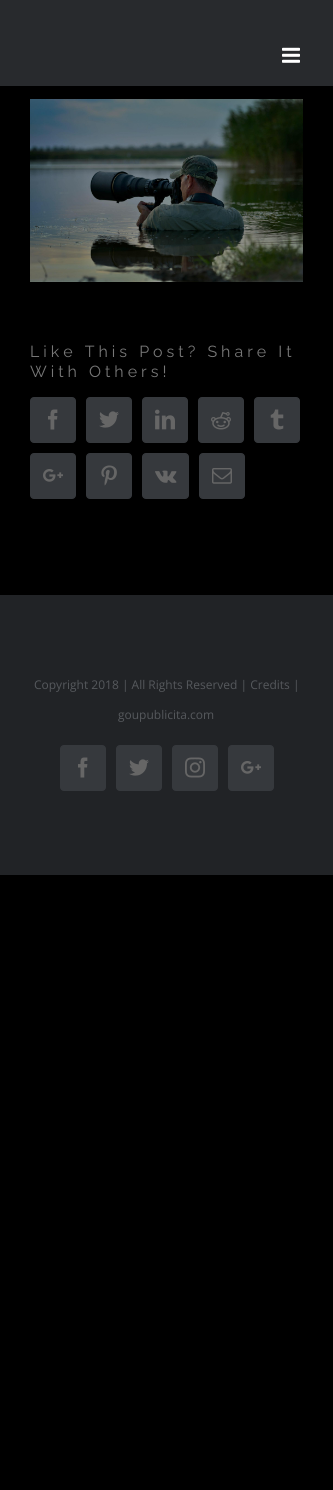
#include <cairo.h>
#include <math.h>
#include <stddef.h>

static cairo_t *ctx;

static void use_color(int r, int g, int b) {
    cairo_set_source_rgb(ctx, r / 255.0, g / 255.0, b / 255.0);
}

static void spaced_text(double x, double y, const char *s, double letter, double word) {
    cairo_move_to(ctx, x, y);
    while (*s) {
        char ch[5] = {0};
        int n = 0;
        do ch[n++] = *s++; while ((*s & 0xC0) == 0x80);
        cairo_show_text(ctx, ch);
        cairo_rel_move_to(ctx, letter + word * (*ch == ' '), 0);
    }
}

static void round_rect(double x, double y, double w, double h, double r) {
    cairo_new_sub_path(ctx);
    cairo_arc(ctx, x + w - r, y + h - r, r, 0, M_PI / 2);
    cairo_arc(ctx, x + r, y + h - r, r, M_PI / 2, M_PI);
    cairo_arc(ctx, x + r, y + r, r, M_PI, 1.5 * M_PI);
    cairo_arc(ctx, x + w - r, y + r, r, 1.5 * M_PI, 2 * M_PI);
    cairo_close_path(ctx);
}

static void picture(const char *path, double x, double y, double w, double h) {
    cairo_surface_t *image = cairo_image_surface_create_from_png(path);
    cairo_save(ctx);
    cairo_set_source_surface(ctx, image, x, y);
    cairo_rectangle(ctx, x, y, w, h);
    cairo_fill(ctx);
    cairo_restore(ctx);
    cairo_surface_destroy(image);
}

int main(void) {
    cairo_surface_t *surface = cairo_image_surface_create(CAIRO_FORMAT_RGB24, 333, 1490);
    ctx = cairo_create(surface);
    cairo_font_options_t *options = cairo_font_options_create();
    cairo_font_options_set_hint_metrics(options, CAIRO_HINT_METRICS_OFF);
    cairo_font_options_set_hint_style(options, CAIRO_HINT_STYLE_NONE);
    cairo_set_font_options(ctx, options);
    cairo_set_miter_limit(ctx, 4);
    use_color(0, 0, 0);
    cairo_paint(ctx);
    use_color(40, 42, 45);
    cairo_rectangle(ctx, 0, 0, 333, 86);
    cairo_fill(ctx);
    picture("img1.png", 282, 47, 18, 16);
    picture("img2.png", 30, 99, 273, 183);
    cairo_select_font_face(ctx, "Raleway Thin", CAIRO_FONT_SLANT_NORMAL, CAIRO_FONT_WEIGHT_NORMAL);
    cairo_set_font_size(ctx, 16);
    use_color(119, 119, 119);
    spaced_text(30, 357, "Like This Post? Share It", 4, 0);
    spaced_text(30, 377, "With Others!", 4, 0);
    use_color(54, 57, 61);
    round_rect(30.5, 397.5, 45, 45, 3.5);
    cairo_fill_preserve(ctx);
    cairo_set_line_width(ctx, 1);
    cairo_stroke(ctx);
    picture("img3.png", 48, 409, 10, 21);
    round_rect(86.5, 397.5, 45, 45, 3.5);
    cairo_fill_preserve(ctx);
    cairo_stroke(ctx);
    picture("img4.png", 99, 411, 20, 17);
    round_rect(142.5, 397.5, 45, 45, 3.5);
    cairo_fill_preserve(ctx);
    cairo_stroke(ctx);
    picture("img5.png", 155, 409, 20, 21);
    round_rect(198.5, 397.5, 45, 45, 3.5);
    cairo_fill_preserve(ctx);
    cairo_stroke(ctx);
    picture("img6.png", 211, 412, 20, 18);
    round_rect(254.5, 397.5, 45, 45, 3.5);
    cairo_fill_preserve(ctx);
    cairo_stroke(ctx);
    picture("img7.png", 270, 409, 14, 21);
    round_rect(30.5, 453.5, 45, 45, 3.5);
    cairo_fill_preserve(ctx);
    cairo_stroke(ctx);
    picture("img8.png", 43, 469, 20, 13);
    round_rect(86.5, 453.5, 45, 45, 3.5);
    cairo_fill_preserve(ctx);
    cairo_stroke(ctx);
    picture("img9.png", 101, 465, 16, 21);
    round_rect(142.5, 453.5, 46, 45, 3.5);
    cairo_fill_preserve(ctx);
    cairo_stroke(ctx);
    picture("img10.png", 155, 470, 22, 13);
    round_rect(199.5, 453.5, 45, 45, 3.5);
    cairo_fill_preserve(ctx);
    cairo_stroke(ctx);
    picture("img11.png", 212, 468, 20, 16);
    use_color(33, 35, 38);
    cairo_rectangle(ctx, 0, 595, 333, 280);
    cairo_fill(ctx);
    cairo_select_font_face(ctx, "Open Sans", CAIRO_FONT_SLANT_NORMAL, CAIRO_FONT_WEIGHT_NORMAL);
    cairo_set_font_size(ctx, 12);
    use_color(85, 88, 92);
    cairo_move_to(ctx, 34, 689);
    cairo_show_text(ctx, "Copyright 2018 | All Rights Reserved | Credits |");
    cairo_move_to(ctx, 118, 719);
    cairo_show_text(ctx, "goupublicita.com");
    use_color(54, 57, 61);
    round_rect(60.5, 745.5, 45, 45, 3.5);
    cairo_fill_preserve(ctx);
    cairo_stroke(ctx);
    picture("img3.png", 78, 757, 10, 21);
    round_rect(116.5, 745.5, 45, 45, 3.5);
    cairo_fill_preserve(ctx);
    cairo_stroke(ctx);
    picture("img4.png", 129, 759, 20, 17);
    round_rect(172.5, 745.5, 45, 45, 3.5);
    cairo_fill_preserve(ctx);
    cairo_stroke(ctx);
    picture("img12.png", 185, 757, 20, 21);
    round_rect(228.5, 745.5, 45, 45, 3.5);
    cairo_fill_preserve(ctx);
    cairo_stroke(ctx);
    picture("img8.png", 241, 761, 20, 13);
    cairo_surface_write_to_png(surface, "result.png");
    cairo_font_options_destroy(options);
    cairo_destroy(ctx);
    cairo_surface_destroy(surface);
    return 0;
}
